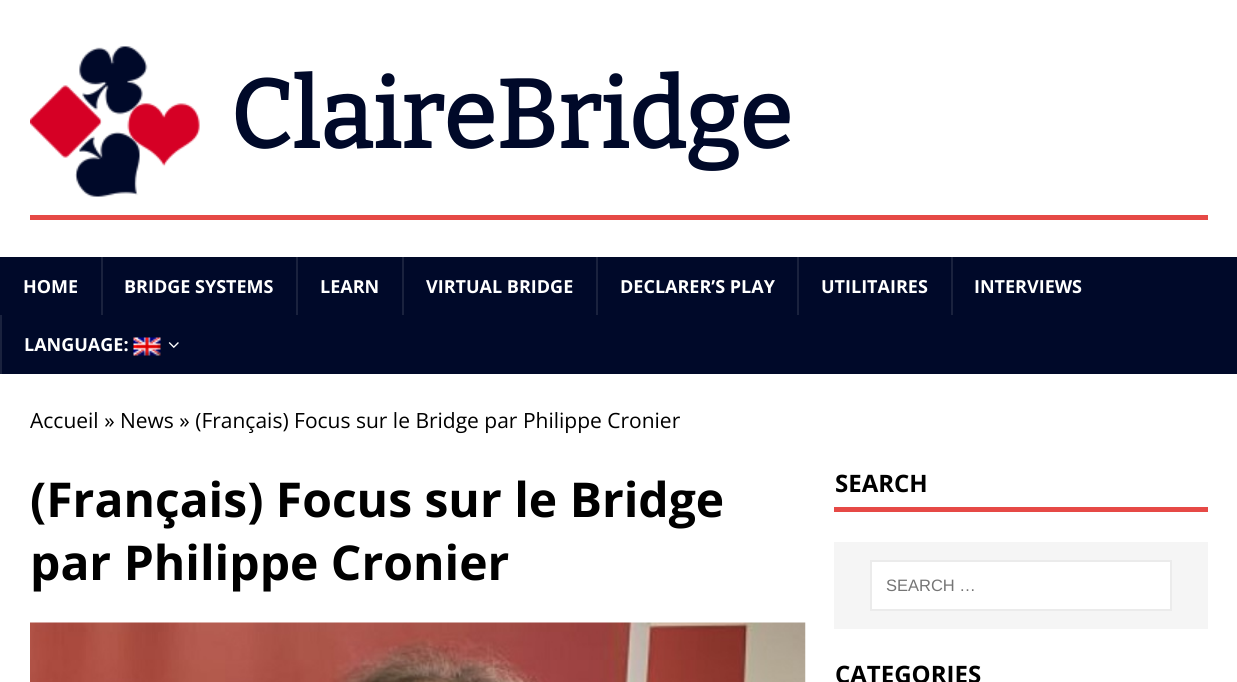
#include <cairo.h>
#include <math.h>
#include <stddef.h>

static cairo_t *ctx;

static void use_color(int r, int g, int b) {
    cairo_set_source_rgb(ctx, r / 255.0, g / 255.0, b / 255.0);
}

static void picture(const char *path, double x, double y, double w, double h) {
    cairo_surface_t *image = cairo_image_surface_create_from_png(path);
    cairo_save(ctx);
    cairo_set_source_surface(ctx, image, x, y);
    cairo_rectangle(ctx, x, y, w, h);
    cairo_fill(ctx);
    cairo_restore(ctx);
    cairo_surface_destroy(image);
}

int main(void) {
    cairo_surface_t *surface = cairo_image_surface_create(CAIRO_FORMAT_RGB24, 1237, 682);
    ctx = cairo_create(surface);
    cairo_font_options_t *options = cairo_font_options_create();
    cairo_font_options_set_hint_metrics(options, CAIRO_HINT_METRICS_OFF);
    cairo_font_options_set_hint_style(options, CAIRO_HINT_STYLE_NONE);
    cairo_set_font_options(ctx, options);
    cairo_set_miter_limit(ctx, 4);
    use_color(255, 255, 255);
    cairo_paint(ctx);
    use_color(230, 73, 70);
    cairo_rectangle(ctx, 30, 215, 1178, 5);
    cairo_fill(ctx);
    picture("img1.png", 30, 46, 170, 151);
    cairo_select_font_face(ctx, "Bitter", CAIRO_FONT_SLANT_NORMAL, CAIRO_FONT_WEIGHT_BOLD);
    cairo_set_font_size(ctx, 96);
    use_color(0, 9, 41);
    cairo_move_to(ctx, 230, 148);
    cairo_show_text(ctx, "ClaireBridge");
    cairo_rectangle(ctx, 0, 257, 1237, 117);
    cairo_fill(ctx);
    cairo_select_font_face(ctx, "Open Sans", CAIRO_FONT_SLANT_NORMAL, CAIRO_FONT_WEIGHT_BOLD);
    cairo_set_font_size(ctx, 18);
    use_color(255, 255, 255);
    cairo_move_to(ctx, 23, 293);
    cairo_show_text(ctx, "HOME");
    use_color(26, 34, 62);
    cairo_rectangle(ctx, 101, 257, 2, 58);
    cairo_fill(ctx);
    use_color(255, 255, 255);
    cairo_move_to(ctx, 124, 293);
    cairo_show_text(ctx, "BRIDGE SYSTEMS");
    use_color(26, 34, 62);
    cairo_rectangle(ctx, 296, 257, 2, 58);
    cairo_fill(ctx);
    use_color(255, 255, 255);
    cairo_move_to(ctx, 320, 293);
    cairo_show_text(ctx, "LEARN");
    use_color(26, 34, 62);
    cairo_rectangle(ctx, 402, 257, 2, 58);
    cairo_fill(ctx);
    use_color(255, 255, 255);
    cairo_move_to(ctx, 426, 293);
    cairo_show_text(ctx, "VIRTUAL BRIDGE");
    use_color(26, 34, 62);
    cairo_rectangle(ctx, 596, 257, 2, 58);
    cairo_fill(ctx);
    use_color(255, 255, 255);
    cairo_move_to(ctx, 620, 293);
    cairo_show_text(ctx, "DECLARER’S PLAY");
    use_color(26, 34, 62);
    cairo_rectangle(ctx, 797, 257, 2, 58);
    cairo_fill(ctx);
    use_color(255, 255, 255);
    cairo_move_to(ctx, 821, 293);
    cairo_show_text(ctx, "UTILITAIRES");
    use_color(26, 34, 62);
    cairo_rectangle(ctx, 951, 257, 2, 58);
    cairo_fill(ctx);
    use_color(255, 255, 255);
    cairo_move_to(ctx, 974, 293);
    cairo_show_text(ctx, "INTERVIEWS");
    use_color(26, 34, 62);
    cairo_rectangle(ctx, 0, 315, 2, 59);
    cairo_fill(ctx);
    use_color(255, 255, 255);
    cairo_move_to(ctx, 24, 351);
    cairo_show_text(ctx, "LANGUAGE:");
    picture("img2.png", 133, 337, 28, 19);
    picture("img3.png", 168, 342, 11, 6);
    cairo_select_font_face(ctx, "Open Sans", CAIRO_FONT_SLANT_NORMAL, CAIRO_FONT_WEIGHT_NORMAL);
    cairo_set_font_size(ctx, 21);
    use_color(0, 0, 0);
    cairo_move_to(ctx, 30, 428);
    cairo_show_text(ctx, "Accueil » News » (Français) Focus sur le Bridge par Philippe Cronier");
    cairo_select_font_face(ctx, "Open Sans", CAIRO_FONT_SLANT_NORMAL, CAIRO_FONT_WEIGHT_BOLD);
    cairo_set_font_size(ctx, 48);
    cairo_move_to(ctx, 30, 517);
    cairo_show_text(ctx, "(Français) Focus sur le Bridge");
    cairo_move_to(ctx, 30, 580);
    cairo_show_text(ctx, "par Philippe Cronier");
    picture("img4.png", 30, 622, 776, 60);
    use_color(230, 73, 70);
    cairo_rectangle(ctx, 834, 507, 374, 5);
    cairo_fill(ctx);
    cairo_set_font_size(ctx, 24);
    use_color(0, 0, 0);
    cairo_move_to(ctx, 835, 492);
    cairo_show_text(ctx, "SEARCH");
    use_color(245, 245, 245);
    cairo_rectangle(ctx, 834, 542, 374, 87);
    cairo_fill(ctx);
    use_color(255, 255, 255);
    cairo_rectangle(ctx, 871, 561, 300, 49);
    cairo_fill_preserve(ctx);
    use_color(235, 235, 235);
    cairo_stroke(ctx);
    cairo_select_font_face(ctx, "Liberation Sans", CAIRO_FONT_SLANT_NORMAL, CAIRO_FONT_WEIGHT_NORMAL);
    cairo_set_font_size(ctx, 16.5);
    use_color(117, 117, 117);
    cairo_move_to(ctx, 886, 591);
    cairo_show_text(ctx, "SEARCH …");
    cairo_select_font_face(ctx, "Open Sans", CAIRO_FONT_SLANT_NORMAL, CAIRO_FONT_WEIGHT_BOLD);
    cairo_set_font_size(ctx, 24);
    use_color(0, 0, 0);
    cairo_move_to(ctx, 835, 683);
    cairo_show_text(ctx, "CATEGORIES");
    cairo_surface_write_to_png(surface, "result.png");
    cairo_font_options_destroy(options);
    cairo_destroy(ctx);
    cairo_surface_destroy(surface);
    return 0;
}
